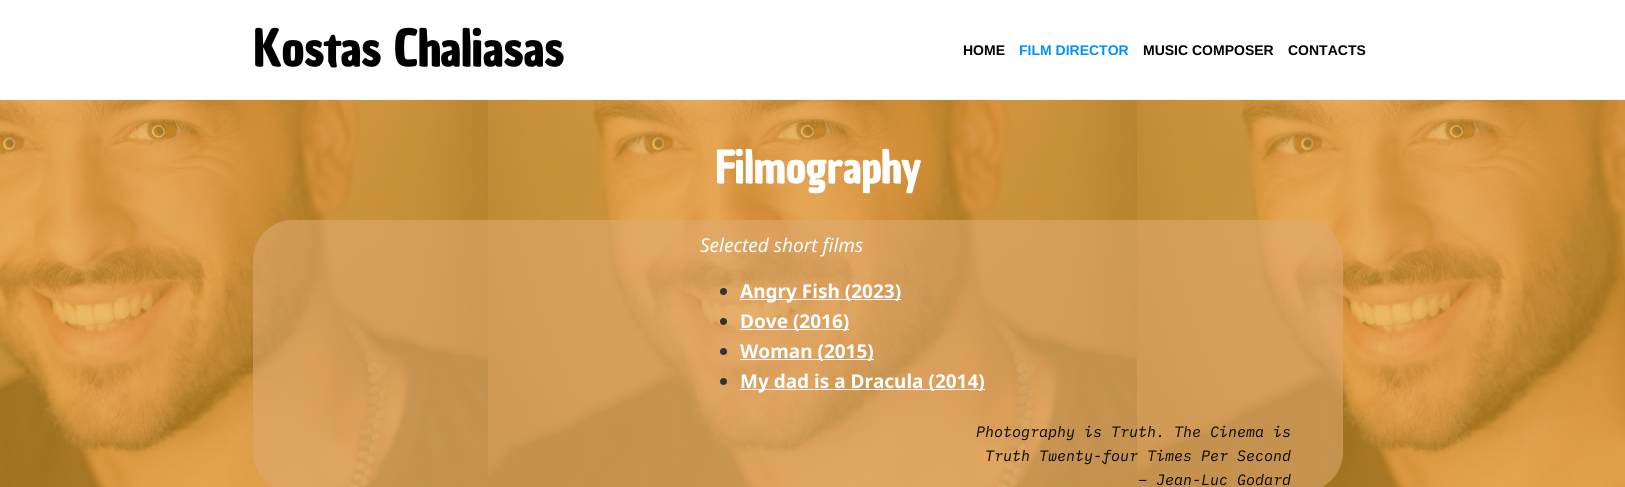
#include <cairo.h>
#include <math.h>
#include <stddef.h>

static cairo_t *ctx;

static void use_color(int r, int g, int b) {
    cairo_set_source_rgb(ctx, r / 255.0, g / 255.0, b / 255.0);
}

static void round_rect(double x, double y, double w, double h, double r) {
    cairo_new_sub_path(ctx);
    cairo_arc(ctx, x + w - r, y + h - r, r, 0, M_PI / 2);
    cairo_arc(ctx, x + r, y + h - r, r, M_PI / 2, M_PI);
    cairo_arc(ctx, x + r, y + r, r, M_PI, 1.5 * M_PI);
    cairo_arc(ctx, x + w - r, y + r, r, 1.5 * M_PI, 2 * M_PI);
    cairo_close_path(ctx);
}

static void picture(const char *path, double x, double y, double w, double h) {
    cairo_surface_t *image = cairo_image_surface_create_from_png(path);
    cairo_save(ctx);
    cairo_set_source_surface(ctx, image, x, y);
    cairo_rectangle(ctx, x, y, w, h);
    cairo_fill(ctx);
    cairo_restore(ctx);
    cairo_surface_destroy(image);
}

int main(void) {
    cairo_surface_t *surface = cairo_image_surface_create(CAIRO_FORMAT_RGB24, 1625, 487);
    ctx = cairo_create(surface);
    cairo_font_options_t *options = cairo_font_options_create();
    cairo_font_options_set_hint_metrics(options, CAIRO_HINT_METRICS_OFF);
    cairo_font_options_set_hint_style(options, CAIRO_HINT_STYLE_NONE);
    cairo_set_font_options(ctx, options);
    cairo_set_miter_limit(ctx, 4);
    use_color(224, 152, 29);
    cairo_paint(ctx);
    use_color(255, 255, 255);
    cairo_rectangle(ctx, 0, 0, 1625, 100);
    cairo_fill(ctx);
    cairo_select_font_face(ctx, "Chau Philomene One", CAIRO_FONT_SLANT_NORMAL, CAIRO_FONT_WEIGHT_BOLD);
    cairo_set_font_size(ctx, 48);
    use_color(0, 0, 0);
    cairo_move_to(ctx, 253, 66);
    cairo_show_text(ctx, "Kostas Chaliasas");
    cairo_select_font_face(ctx, "Liberation Sans", CAIRO_FONT_SLANT_NORMAL, CAIRO_FONT_WEIGHT_BOLD);
    cairo_set_font_size(ctx, 14);
    cairo_move_to(ctx, 963, 55);
    cairo_show_text(ctx, "HOME");
    use_color(0, 145, 255);
    cairo_move_to(ctx, 1019, 55);
    cairo_show_text(ctx, "FILM DIRECTOR");
    use_color(0, 0, 0);
    cairo_move_to(ctx, 1143, 55);
    cairo_show_text(ctx, "MUSIC COMPOSER");
    cairo_move_to(ctx, 1288, 55);
    cairo_show_text(ctx, "CONTACTS");
    picture("img1.png", 0, 100, 1625, 387);
    cairo_select_font_face(ctx, "Chau Philomene One", CAIRO_FONT_SLANT_NORMAL, CAIRO_FONT_WEIGHT_BOLD);
    cairo_set_font_size(ctx, 43);
    use_color(255, 255, 255);
    cairo_move_to(ctx, 715, 183);
    cairo_show_text(ctx, "Filmography");
    cairo_set_source_rgba(ctx, 0.878, 0.667, 0.439, 0.59);
    round_rect(253, 220, 1090, 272, 40);
    cairo_fill(ctx);
    cairo_select_font_face(ctx, "Noto Sans", CAIRO_FONT_SLANT_ITALIC, CAIRO_FONT_WEIGHT_NORMAL);
    cairo_set_font_size(ctx, 19);
    use_color(255, 255, 255);
    cairo_move_to(ctx, 700, 252);
    cairo_show_text(ctx, "Selected short films");
    use_color(51, 51, 51);
    cairo_new_path(ctx);
    cairo_arc(ctx, 723.5, 291.5, 3.5, 0, 2 * M_PI);
    cairo_fill(ctx);
    use_color(255, 255, 255);
    cairo_rectangle(ctx, 740, 299, 161, 1);
    cairo_fill(ctx);
    cairo_select_font_face(ctx, "Noto Sans", CAIRO_FONT_SLANT_NORMAL, CAIRO_FONT_WEIGHT_BOLD);
    cairo_move_to(ctx, 740, 298);
    cairo_show_text(ctx, "Angry Fish (2023)");
    use_color(51, 51, 51);
    cairo_new_path(ctx);
    cairo_arc(ctx, 723.5, 321.5, 3.5, 0, 2 * M_PI);
    cairo_fill(ctx);
    use_color(255, 255, 255);
    cairo_rectangle(ctx, 740, 329, 109, 1);
    cairo_fill(ctx);
    cairo_move_to(ctx, 740, 328);
    cairo_show_text(ctx, "Dove (2016)");
    use_color(51, 51, 51);
    cairo_new_path(ctx);
    cairo_arc(ctx, 723.5, 351.5, 3.5, 0, 2 * M_PI);
    cairo_fill(ctx);
    use_color(255, 255, 255);
    cairo_rectangle(ctx, 740, 359, 134, 1);
    cairo_fill(ctx);
    cairo_move_to(ctx, 740, 358);
    cairo_show_text(ctx, "Woman (2015)");
    use_color(51, 51, 51);
    cairo_new_path(ctx);
    cairo_arc(ctx, 723.5, 381.5, 3.5, 0, 2 * M_PI);
    cairo_fill(ctx);
    use_color(255, 255, 255);
    cairo_rectangle(ctx, 740, 389, 245, 1);
    cairo_fill(ctx);
    cairo_move_to(ctx, 740, 388);
    cairo_show_text(ctx, "My dad is a Dracula (2014)");
    cairo_select_font_face(ctx, "IBM Plex Mono", CAIRO_FONT_SLANT_ITALIC, CAIRO_FONT_WEIGHT_NORMAL);
    cairo_set_font_size(ctx, 15);
    use_color(0, 0, 0);
    cairo_move_to(ctx, 976, 437);
    cairo_show_text(ctx, "Photography is Truth. The Cinema is");
    cairo_move_to(ctx, 985, 461);
    cairo_show_text(ctx, "Truth Twenty-four Times Per Second");
    cairo_move_to(ctx, 1138, 485);
    cairo_show_text(ctx, "– Jean-Luc Godard");
    cairo_surface_write_to_png(surface, "result.png");
    cairo_font_options_destroy(options);
    cairo_destroy(ctx);
    cairo_surface_destroy(surface);
    return 0;
}
